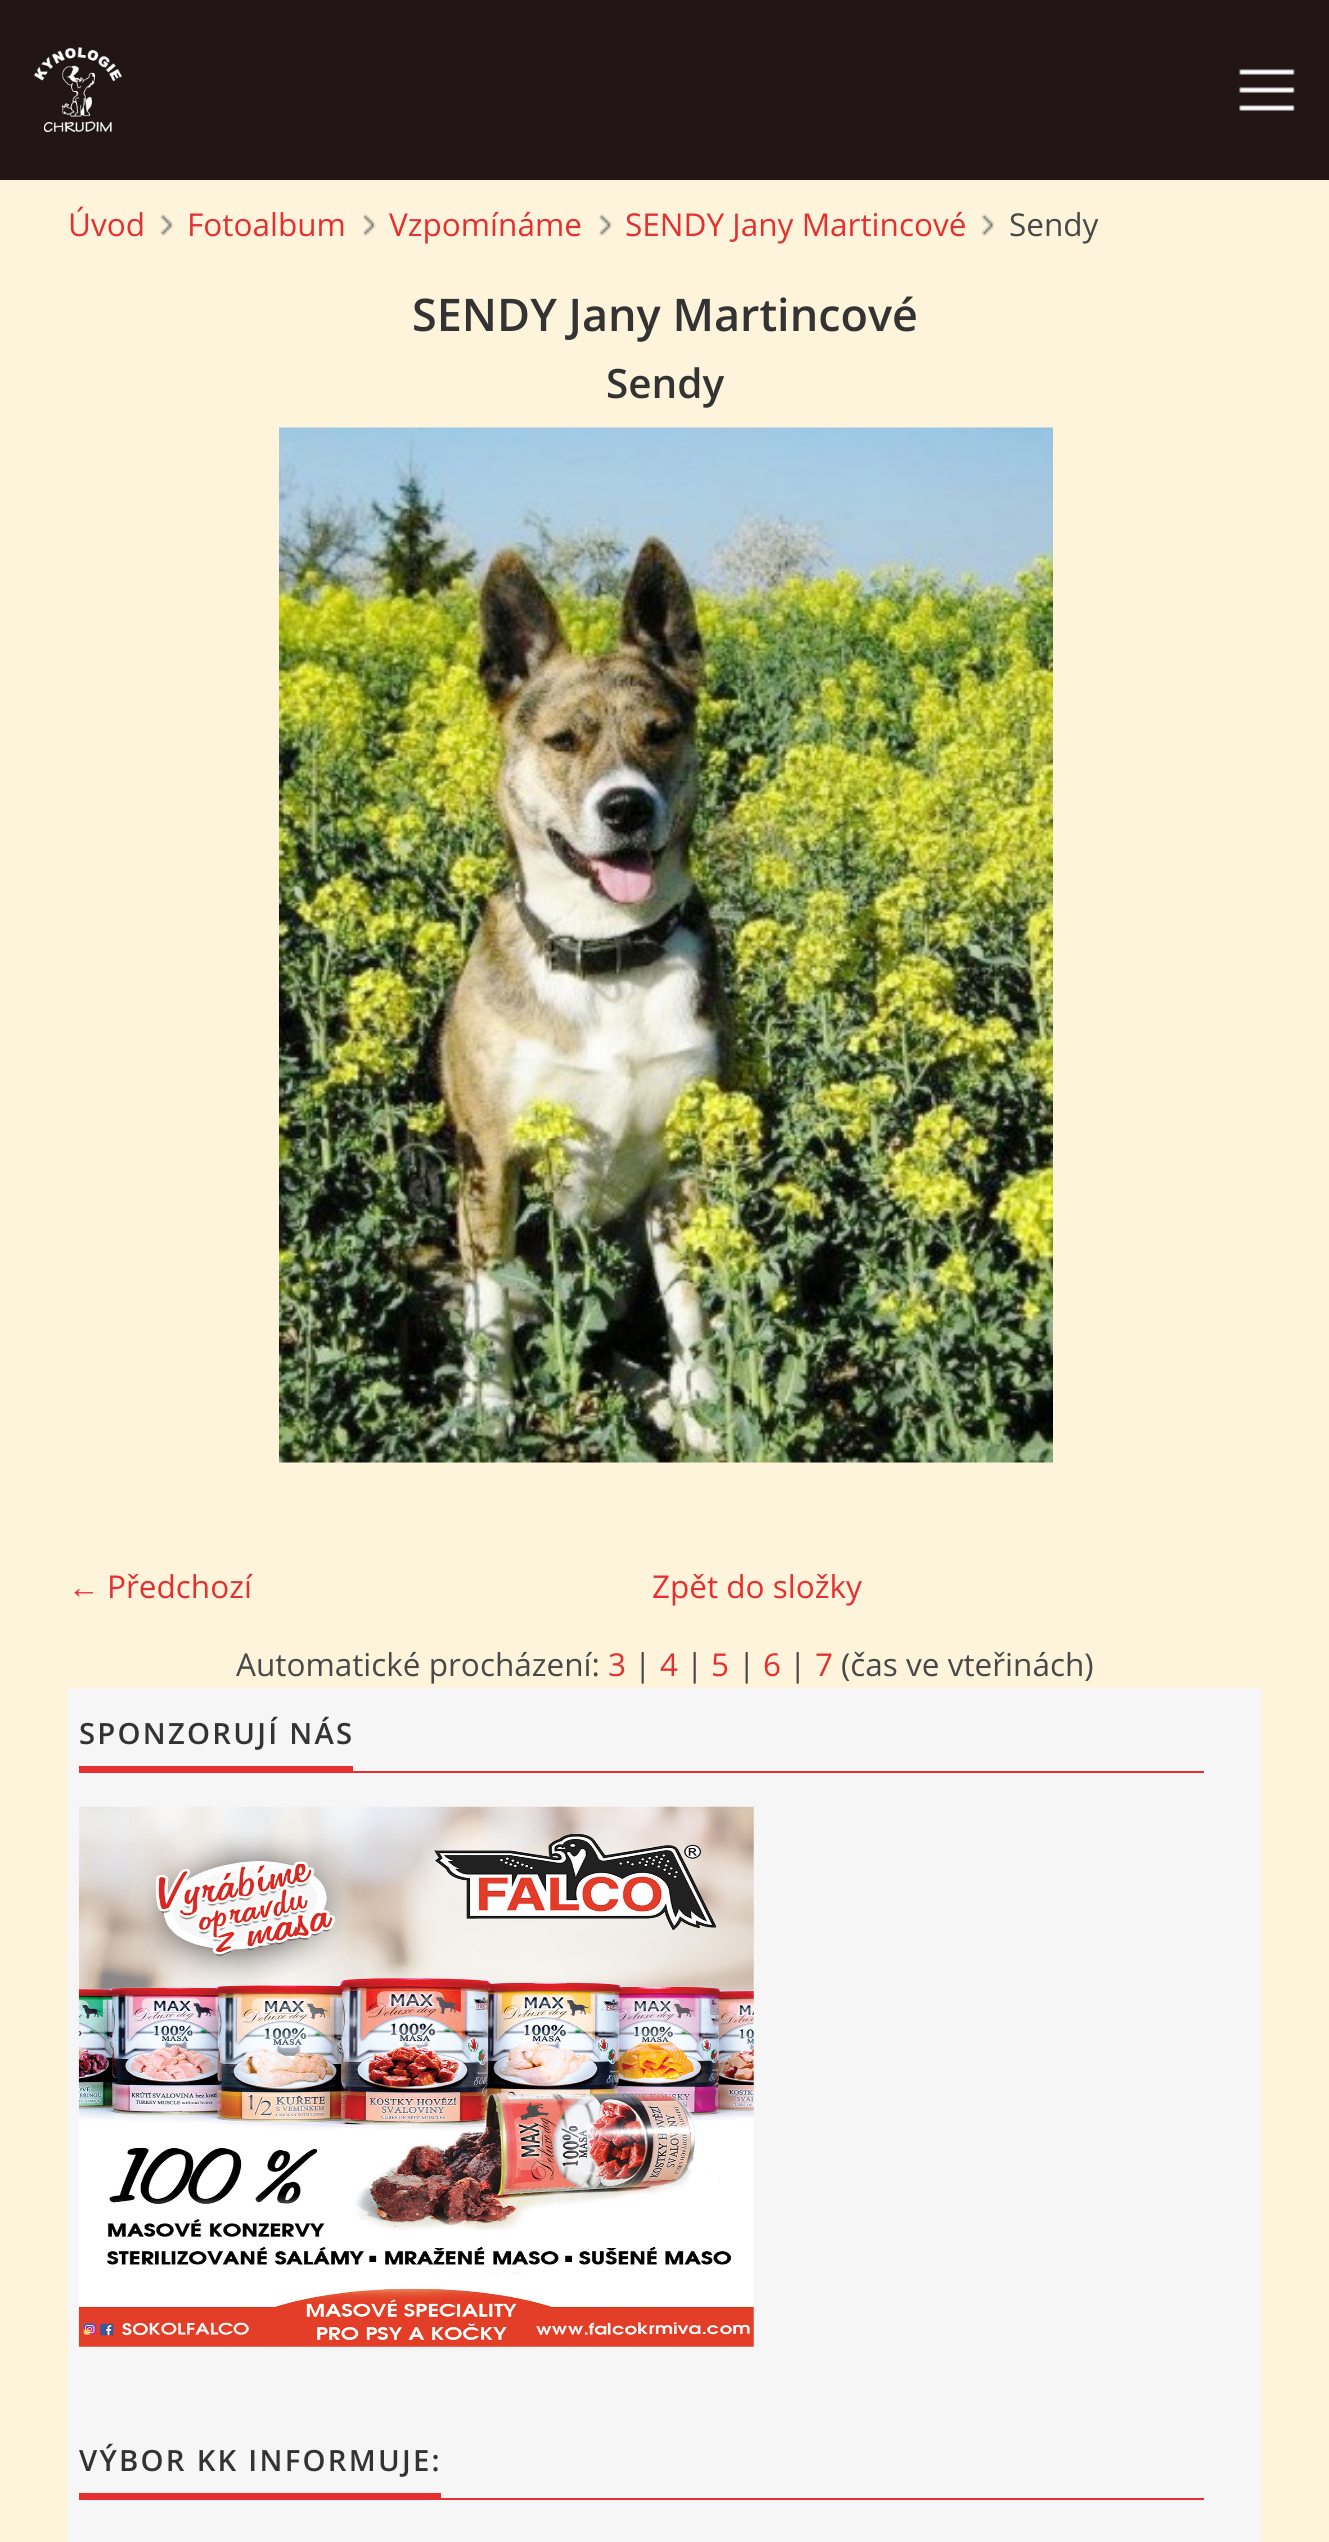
#include <cairo.h>
#include <math.h>
#include <stddef.h>

static cairo_t *ctx;

static void use_color(int r, int g, int b) {
    cairo_set_source_rgb(ctx, r / 255.0, g / 255.0, b / 255.0);
}

static void spaced_text(double x, double y, const char *s, double letter, double word) {
    cairo_move_to(ctx, x, y);
    while (*s) {
        char ch[5] = {0};
        int n = 0;
        do ch[n++] = *s++; while ((*s & 0xC0) == 0x80);
        cairo_show_text(ctx, ch);
        cairo_rel_move_to(ctx, letter + word * (*ch == ' '), 0);
    }
}

static void picture(const char *path, double x, double y, double w, double h) {
    cairo_surface_t *image = cairo_image_surface_create_from_png(path);
    cairo_save(ctx);
    cairo_set_source_surface(ctx, image, x, y);
    cairo_rectangle(ctx, x, y, w, h);
    cairo_fill(ctx);
    cairo_restore(ctx);
    cairo_surface_destroy(image);
}

int main(void) {
    cairo_surface_t *surface = cairo_image_surface_create(CAIRO_FORMAT_RGB24, 1329, 2542);
    ctx = cairo_create(surface);
    cairo_font_options_t *options = cairo_font_options_create();
    cairo_font_options_set_hint_metrics(options, CAIRO_HINT_METRICS_OFF);
    cairo_font_options_set_hint_style(options, CAIRO_HINT_STYLE_NONE);
    cairo_set_font_options(ctx, options);
    cairo_set_miter_limit(ctx, 4);
    use_color(253, 244, 219);
    cairo_paint(ctx);
    use_color(33, 21, 21);
    cairo_rectangle(ctx, 0, 0, 1329, 180);
    cairo_fill(ctx);
    picture("img1.png", 33, 47, 90, 86);
    picture("img2.png", 1239, 69, 56, 42);
    picture("img3.png", 159, 214, 15, 22);
    cairo_select_font_face(ctx, "Open Sans", CAIRO_FONT_SLANT_NORMAL, CAIRO_FONT_WEIGHT_NORMAL);
    cairo_set_font_size(ctx, 31.5);
    use_color(230, 47, 47);
    cairo_move_to(ctx, 68, 236);
    cairo_show_text(ctx, "Úvod");
    picture("img4.png", 362, 213, 14, 24);
    cairo_move_to(ctx, 187, 236);
    cairo_show_text(ctx, "Fotoalbum");
    picture("img5.png", 598, 214, 14, 22);
    cairo_move_to(ctx, 389, 236);
    cairo_show_text(ctx, "Vzpomínáme");
    picture("img6.png", 981, 214, 14, 22);
    cairo_move_to(ctx, 625, 236);
    cairo_show_text(ctx, "SENDY Jany Martincové");
    use_color(72, 72, 72);
    cairo_move_to(ctx, 1009, 236);
    cairo_show_text(ctx, "Sendy");
    cairo_select_font_face(ctx, "Open Sans SemiBold", CAIRO_FONT_SLANT_NORMAL, CAIRO_FONT_WEIGHT_NORMAL);
    cairo_set_font_size(ctx, 45);
    use_color(51, 51, 51);
    cairo_move_to(ctx, 412, 331);
    cairo_show_text(ctx, "SENDY Jany Martincové");
    cairo_set_font_size(ctx, 40.5);
    cairo_move_to(ctx, 606, 398);
    cairo_show_text(ctx, "Sendy");
    picture("img7.png", 279, 427, 774, 1036);
    cairo_select_font_face(ctx, "Liberation Serif", CAIRO_FONT_SLANT_NORMAL, CAIRO_FONT_WEIGHT_NORMAL);
    cairo_set_font_size(ctx, 31.5);
    use_color(230, 47, 47);
    cairo_move_to(ctx, 68, 1598);
    cairo_show_text(ctx, "←");
    cairo_select_font_face(ctx, "Open Sans", CAIRO_FONT_SLANT_NORMAL, CAIRO_FONT_WEIGHT_NORMAL);
    cairo_move_to(ctx, 107, 1598);
    cairo_show_text(ctx, "Předchozí");
    cairo_move_to(ctx, 652, 1598);
    cairo_show_text(ctx, "Zpět do složky");
    use_color(72, 72, 72);
    cairo_move_to(ctx, 236, 1676);
    cairo_show_text(ctx, "Automatické procházení:");
    use_color(230, 47, 47);
    cairo_move_to(ctx, 608, 1676);
    cairo_show_text(ctx, "3");
    use_color(72, 72, 72);
    cairo_move_to(ctx, 634, 1676);
    cairo_show_text(ctx, "|");
    use_color(230, 47, 47);
    cairo_move_to(ctx, 660, 1676);
    cairo_show_text(ctx, "4");
    use_color(72, 72, 72);
    cairo_move_to(ctx, 686, 1676);
    cairo_show_text(ctx, "|");
    use_color(230, 47, 47);
    cairo_move_to(ctx, 711, 1676);
    cairo_show_text(ctx, "5");
    use_color(72, 72, 72);
    cairo_move_to(ctx, 738, 1676);
    cairo_show_text(ctx, "|");
    use_color(230, 47, 47);
    cairo_move_to(ctx, 763, 1676);
    cairo_show_text(ctx, "6");
    use_color(72, 72, 72);
    cairo_move_to(ctx, 789, 1676);
    cairo_show_text(ctx, "|");
    use_color(230, 47, 47);
    cairo_move_to(ctx, 815, 1676);
    cairo_show_text(ctx, "7");
    use_color(72, 72, 72);
    cairo_move_to(ctx, 841, 1676);
    cairo_show_text(ctx, "(čas ve vteřinách)");
    use_color(246, 246, 246);
    cairo_rectangle(ctx, 68, 1688, 1194, 854);
    cairo_fill(ctx);
    cairo_select_font_face(ctx, "Open Sans SemiBold", CAIRO_FONT_SLANT_NORMAL, CAIRO_FONT_WEIGHT_NORMAL);
    cairo_set_font_size(ctx, 29.25);
    use_color(51, 51, 51);
    spaced_text(79, 1744, "SPONZORUJÍ NÁS", 2.25, 0);
    use_color(230, 47, 47);
    cairo_rectangle(ctx, 79, 1766, 274, 5);
    cairo_fill(ctx);
    cairo_rectangle(ctx, 79, 1771, 1125, 2);
    cairo_fill(ctx);
    picture("img8.png", 78, 1806, 676, 541);
    use_color(51, 51, 51);
    spaced_text(79, 2471, "VÝBOR KK INFORMUJE:", 2.25, 0);
    use_color(230, 47, 47);
    cairo_rectangle(ctx, 79, 2493, 362, 5);
    cairo_fill(ctx);
    cairo_rectangle(ctx, 79, 2498, 1125, 2);
    cairo_fill(ctx);
    cairo_surface_write_to_png(surface, "result.png");
    cairo_font_options_destroy(options);
    cairo_destroy(ctx);
    cairo_surface_destroy(surface);
    return 0;
}
